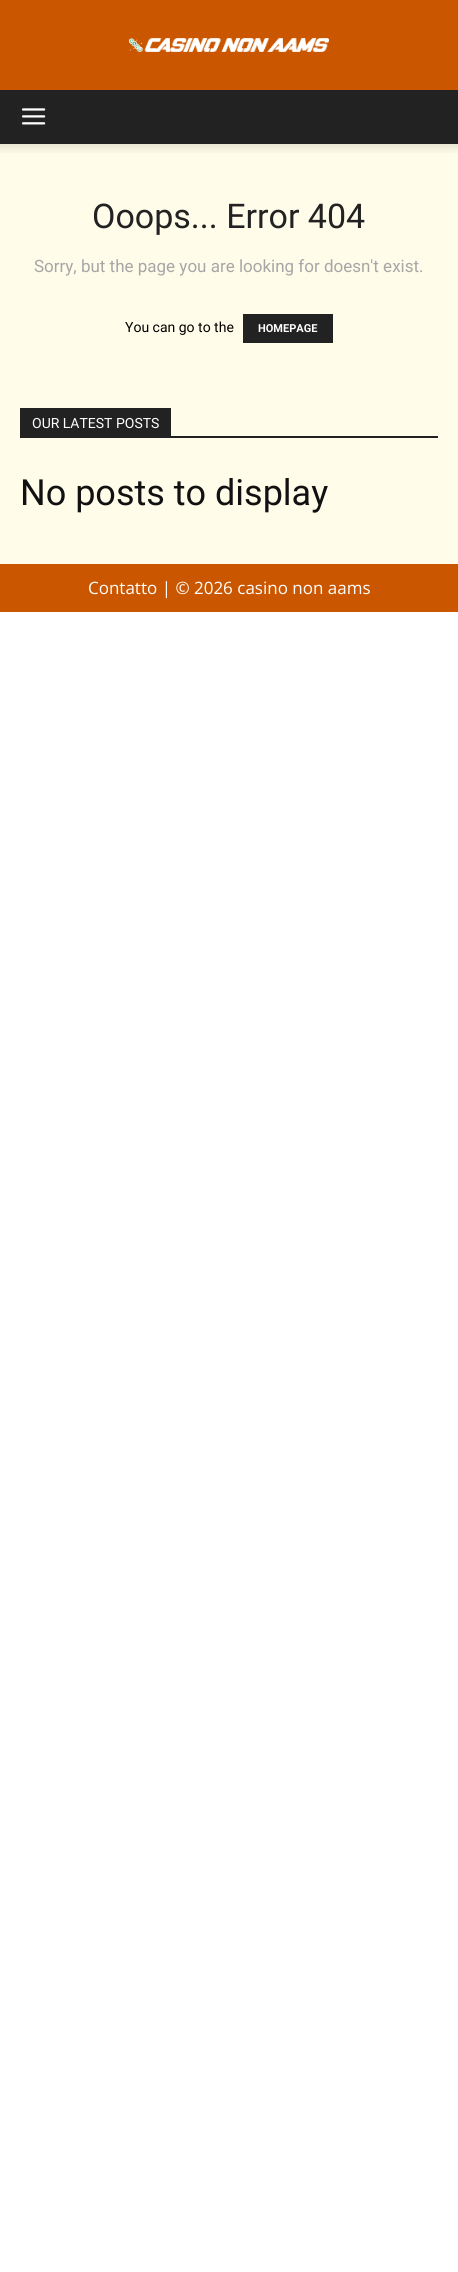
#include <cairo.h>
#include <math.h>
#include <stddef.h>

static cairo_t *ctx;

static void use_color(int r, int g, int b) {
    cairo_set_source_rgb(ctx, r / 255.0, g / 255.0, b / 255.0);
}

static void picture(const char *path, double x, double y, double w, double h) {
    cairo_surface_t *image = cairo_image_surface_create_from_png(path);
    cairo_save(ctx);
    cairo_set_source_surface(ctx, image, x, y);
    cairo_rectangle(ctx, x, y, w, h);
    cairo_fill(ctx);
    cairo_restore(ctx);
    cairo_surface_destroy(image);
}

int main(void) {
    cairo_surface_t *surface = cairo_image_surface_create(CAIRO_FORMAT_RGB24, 458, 2272);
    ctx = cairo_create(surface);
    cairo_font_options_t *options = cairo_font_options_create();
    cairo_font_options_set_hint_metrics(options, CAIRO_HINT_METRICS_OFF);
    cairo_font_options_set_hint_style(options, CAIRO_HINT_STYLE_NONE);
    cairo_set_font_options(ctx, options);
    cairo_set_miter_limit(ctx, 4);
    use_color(255, 255, 255);
    cairo_paint(ctx);
    use_color(203, 86, 0);
    cairo_rectangle(ctx, 0, 0, 458, 90);
    cairo_fill(ctx);
    picture("img1.png", 129, 38, 200, 14);
    use_color(34, 34, 34);
    cairo_rectangle(ctx, 0, 90, 458, 54);
    cairo_fill(ctx);
    picture("img2.png", 22, 108, 24, 17);
    use_color(255, 252, 234);
    cairo_rectangle(ctx, 0, 144, 458, 420);
    cairo_fill(ctx);
    picture("img3.png", 0, 144, 458, 9);
    cairo_select_font_face(ctx, "Roboto", CAIRO_FONT_SLANT_NORMAL, CAIRO_FONT_WEIGHT_NORMAL);
    cairo_set_font_size(ctx, 34);
    use_color(34, 34, 34);
    cairo_move_to(ctx, 92, 228);
    cairo_show_text(ctx, "Ooops... Error 404");
    cairo_set_font_size(ctx, 17);
    use_color(166, 166, 166);
    cairo_move_to(ctx, 34, 272);
    cairo_show_text(ctx, "Sorry, but the page you are looking for doesn't exist.");
    cairo_set_font_size(ctx, 14);
    use_color(0, 0, 0);
    cairo_move_to(ctx, 125, 332);
    cairo_show_text(ctx, "You can go to the");
    use_color(34, 34, 34);
    cairo_rectangle(ctx, 243, 314, 90, 29);
    cairo_fill(ctx);
    cairo_select_font_face(ctx, "Roboto", CAIRO_FONT_SLANT_NORMAL, CAIRO_FONT_WEIGHT_BOLD);
    cairo_set_font_size(ctx, 11);
    use_color(255, 255, 255);
    cairo_move_to(ctx, 258, 332);
    cairo_show_text(ctx, "HOMEPAGE");
    use_color(34, 34, 34);
    cairo_rectangle(ctx, 20, 436, 418, 2);
    cairo_fill(ctx);
    cairo_rectangle(ctx, 20, 408, 151, 28);
    cairo_fill(ctx);
    cairo_select_font_face(ctx, "Roboto", CAIRO_FONT_SLANT_NORMAL, CAIRO_FONT_WEIGHT_NORMAL);
    cairo_set_font_size(ctx, 14);
    use_color(255, 255, 255);
    cairo_move_to(ctx, 32, 428);
    cairo_show_text(ctx, "OUR LATEST POSTS");
    cairo_set_font_size(ctx, 36);
    use_color(17, 17, 17);
    cairo_move_to(ctx, 20, 505);
    cairo_show_text(ctx, "No posts to display");
    use_color(203, 86, 0);
    cairo_rectangle(ctx, 0, 564, 458, 48);
    cairo_fill(ctx);
    cairo_select_font_face(ctx, "Open Sans", CAIRO_FONT_SLANT_NORMAL, CAIRO_FONT_WEIGHT_NORMAL);
    cairo_set_font_size(ctx, 17);
    use_color(255, 255, 255);
    cairo_move_to(ctx, 88, 594);
    cairo_show_text(ctx, "Contatto | © 2026 casino non aams");
    cairo_surface_write_to_png(surface, "result.png");
    cairo_font_options_destroy(options);
    cairo_destroy(ctx);
    cairo_surface_destroy(surface);
    return 0;
}
